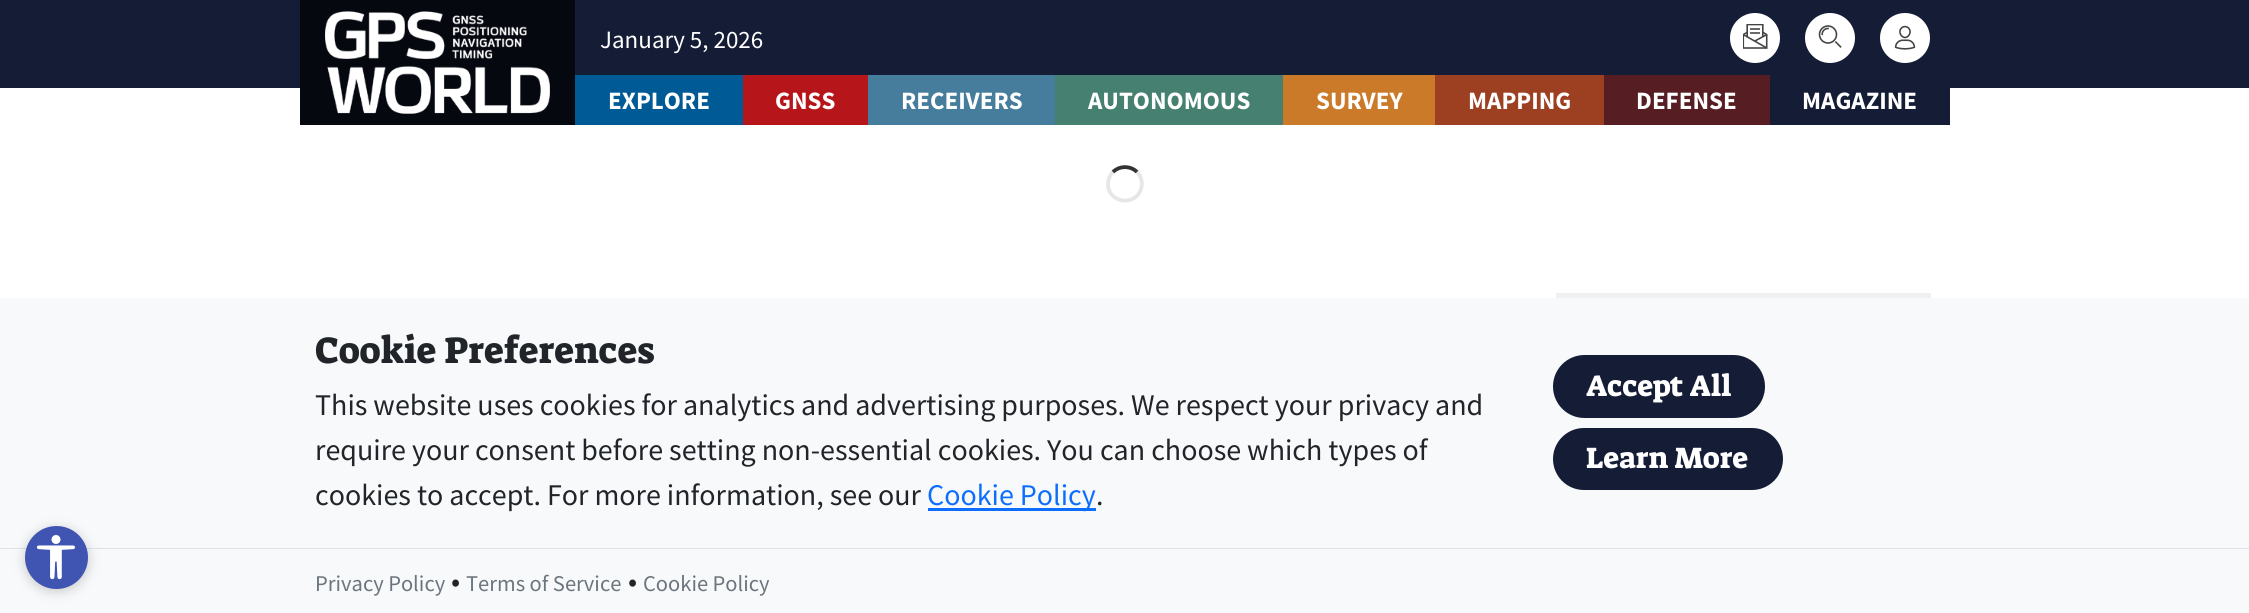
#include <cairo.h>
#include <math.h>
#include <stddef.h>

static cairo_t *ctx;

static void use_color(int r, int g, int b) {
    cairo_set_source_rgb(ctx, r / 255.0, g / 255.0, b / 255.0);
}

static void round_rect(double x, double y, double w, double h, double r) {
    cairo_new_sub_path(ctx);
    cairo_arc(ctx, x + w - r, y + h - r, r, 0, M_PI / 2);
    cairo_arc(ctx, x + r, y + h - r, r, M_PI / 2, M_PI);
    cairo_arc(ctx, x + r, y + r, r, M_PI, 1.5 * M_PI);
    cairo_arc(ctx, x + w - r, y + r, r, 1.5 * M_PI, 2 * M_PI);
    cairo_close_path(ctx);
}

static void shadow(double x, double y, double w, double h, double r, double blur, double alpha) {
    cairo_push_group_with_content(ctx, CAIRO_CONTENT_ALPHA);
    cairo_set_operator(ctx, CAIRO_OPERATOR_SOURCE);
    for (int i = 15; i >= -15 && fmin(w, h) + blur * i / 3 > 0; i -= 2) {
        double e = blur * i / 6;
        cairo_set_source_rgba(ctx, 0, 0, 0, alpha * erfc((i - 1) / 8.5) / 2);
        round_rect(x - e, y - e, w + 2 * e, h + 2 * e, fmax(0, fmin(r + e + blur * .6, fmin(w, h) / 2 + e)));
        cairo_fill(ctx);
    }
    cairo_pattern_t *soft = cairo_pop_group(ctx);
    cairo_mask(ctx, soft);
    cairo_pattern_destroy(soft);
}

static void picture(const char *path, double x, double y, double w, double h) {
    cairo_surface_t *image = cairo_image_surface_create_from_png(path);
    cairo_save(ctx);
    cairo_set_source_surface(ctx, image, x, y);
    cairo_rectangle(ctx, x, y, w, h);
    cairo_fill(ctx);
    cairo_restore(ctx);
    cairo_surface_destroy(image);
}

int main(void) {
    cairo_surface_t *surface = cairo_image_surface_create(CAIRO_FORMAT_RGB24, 2249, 613);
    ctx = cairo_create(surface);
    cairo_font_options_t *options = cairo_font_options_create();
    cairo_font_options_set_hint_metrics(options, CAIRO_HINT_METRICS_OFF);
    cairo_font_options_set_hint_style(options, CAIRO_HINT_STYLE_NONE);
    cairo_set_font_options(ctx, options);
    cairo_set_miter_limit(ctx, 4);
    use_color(255, 255, 255);
    cairo_paint(ctx);
    use_color(20, 28, 54);
    cairo_rectangle(ctx, 0, 0, 2249, 88);
    cairo_fill(ctx);
    use_color(6, 8, 16);
    cairo_rectangle(ctx, 300, 0, 275, 125);
    cairo_fill(ctx);
    picture("img1.png", 325, 11, 225, 103);
    cairo_select_font_face(ctx, "Source Sans Pro", CAIRO_FONT_SLANT_NORMAL, CAIRO_FONT_WEIGHT_NORMAL);
    cairo_set_font_size(ctx, 25);
    use_color(255, 255, 255);
    cairo_move_to(ctx, 600, 48);
    cairo_show_text(ctx, "January 5, 2026");
    cairo_new_path(ctx);
    cairo_arc(ctx, 1755, 38, 25, 0, 2 * M_PI);
    cairo_fill(ctx);
    picture("img2.png", 1743, 24, 25, 25);
    cairo_arc(ctx, 1830, 38, 25, 0, 2 * M_PI);
    cairo_fill(ctx);
    picture("img3.png", 1818, 25, 24, 23);
    cairo_arc(ctx, 1905, 38, 25, 0, 2 * M_PI);
    cairo_fill(ctx);
    picture("img4.png", 1894, 25, 22, 25);
    use_color(20, 28, 54);
    cairo_rectangle(ctx, 1770, 88, 180, 37);
    cairo_fill(ctx);
    use_color(0, 90, 150);
    cairo_rectangle(ctx, 575, 75, 168, 50);
    cairo_fill(ctx);
    cairo_select_font_face(ctx, "Source Sans Pro", CAIRO_FONT_SLANT_NORMAL, CAIRO_FONT_WEIGHT_BOLD);
    use_color(255, 255, 255);
    cairo_move_to(ctx, 608, 109);
    cairo_show_text(ctx, "EXPLORE");
    use_color(182, 21, 26);
    cairo_rectangle(ctx, 743, 75, 125, 50);
    cairo_fill(ctx);
    use_color(255, 255, 255);
    cairo_move_to(ctx, 775, 109);
    cairo_show_text(ctx, "GNSS");
    use_color(70, 125, 156);
    cairo_rectangle(ctx, 868, 75, 187, 50);
    cairo_fill(ctx);
    use_color(255, 255, 255);
    cairo_move_to(ctx, 901, 109);
    cairo_show_text(ctx, "RECEIVERS");
    use_color(69, 128, 112);
    cairo_rectangle(ctx, 1055, 75, 228, 50);
    cairo_fill(ctx);
    use_color(255, 255, 255);
    cairo_move_to(ctx, 1088, 109);
    cairo_show_text(ctx, "AUTONOMOUS");
    use_color(202, 122, 41);
    cairo_rectangle(ctx, 1283, 75, 152, 50);
    cairo_fill(ctx);
    use_color(255, 255, 255);
    cairo_move_to(ctx, 1316, 109);
    cairo_show_text(ctx, "SURVEY");
    use_color(157, 64, 34);
    cairo_rectangle(ctx, 1435, 75, 169, 50);
    cairo_fill(ctx);
    use_color(255, 255, 255);
    cairo_move_to(ctx, 1468, 109);
    cairo_show_text(ctx, "MAPPING");
    use_color(86, 29, 35);
    cairo_rectangle(ctx, 1604, 75, 166, 50);
    cairo_fill(ctx);
    use_color(255, 255, 255);
    cairo_move_to(ctx, 1636, 109);
    cairo_show_text(ctx, "DEFENSE");
    cairo_move_to(ctx, 1802, 109);
    cairo_show_text(ctx, "MAGAZINE");
    cairo_new_path(ctx);
    cairo_move_to(ctx, 1113, 172);
    cairo_curve_to(ctx, 1119.5, 165.5, 1130.5, 165.5, 1137, 172);
    use_color(51, 51, 51);
    cairo_set_line_width(ctx, 3.8);
    cairo_stroke(ctx);
    cairo_new_path(ctx);
    cairo_move_to(ctx, 1137, 172);
    cairo_curve_to(ctx, 1141, 176, 1142.5, 181.5, 1141.5, 187);
    cairo_curve_to(ctx, 1137.5, 207, 1108, 204, 1108, 184);
    cairo_curve_to(ctx, 1108, 179.5, 1110, 175, 1113, 172);
    cairo_set_source_rgba(ctx, 0, 0, 0, 0.1);
    cairo_stroke(ctx);
    use_color(240, 240, 241);
    cairo_rectangle(ctx, 1556, 293, 375, 5);
    cairo_fill(ctx);
    use_color(248, 249, 250);
    cairo_rectangle(ctx, 0, 298, 2249, 315);
    cairo_fill(ctx);
    use_color(222, 226, 230);
    cairo_rectangle(ctx, 0, 548, 2249, 1);
    cairo_fill(ctx);
    use_color(0, 0, 0);
    shadow(25, 529, 63, 62, 31, 6, 0.2);
    use_color(64, 84, 178);
    cairo_arc(ctx, 56.5, 557.5, 31.5, 0, 2 * M_PI);
    cairo_fill(ctx);
    picture("img5.png", 36, 535, 39, 45);
    cairo_select_font_face(ctx, "Suez One", CAIRO_FONT_SLANT_NORMAL, CAIRO_FONT_WEIGHT_NORMAL);
    cairo_set_font_size(ctx, 37.5);
    use_color(33, 37, 41);
    cairo_move_to(ctx, 315, 363);
    cairo_show_text(ctx, "Cookie Preferences");
    cairo_select_font_face(ctx, "Source Sans Pro", CAIRO_FONT_SLANT_NORMAL, CAIRO_FONT_WEIGHT_NORMAL);
    cairo_set_font_size(ctx, 30);
    cairo_move_to(ctx, 315, 415);
    cairo_show_text(ctx, "This website uses cookies for analytics and advertising purposes. We respect your privacy and");
    cairo_move_to(ctx, 315, 460);
    cairo_show_text(ctx, "require your consent before setting non-essential cookies. You can choose which types of");
    cairo_move_to(ctx, 315, 505);
    cairo_show_text(ctx, "cookies to accept. For more information, see our");
    use_color(13, 110, 253);
    cairo_rectangle(ctx, 928, 508, 168, 3);
    cairo_fill(ctx);
    cairo_move_to(ctx, 927, 505);
    cairo_show_text(ctx, "Cookie Policy");
    use_color(33, 37, 41);
    cairo_move_to(ctx, 1096, 505);
    cairo_show_text(ctx, ".");
    use_color(20, 28, 54);
    round_rect(1555, 357, 208, 59, 29.5);
    cairo_fill_preserve(ctx);
    cairo_set_line_width(ctx, 4);
    cairo_stroke(ctx);
    cairo_select_font_face(ctx, "Suez One", CAIRO_FONT_SLANT_NORMAL, CAIRO_FONT_WEIGHT_NORMAL);
    use_color(255, 255, 255);
    cairo_move_to(ctx, 1586, 396);
    cairo_show_text(ctx, "Accept All");
    use_color(20, 28, 54);
    round_rect(1555, 430, 226, 58, 29);
    cairo_fill_preserve(ctx);
    cairo_stroke(ctx);
    use_color(255, 255, 255);
    cairo_move_to(ctx, 1586, 468);
    cairo_show_text(ctx, "Learn More");
    cairo_select_font_face(ctx, "Source Sans Pro", CAIRO_FONT_SLANT_NORMAL, CAIRO_FONT_WEIGHT_NORMAL);
    cairo_set_font_size(ctx, 22.5);
    use_color(108, 117, 125);
    cairo_move_to(ctx, 315, 591);
    cairo_show_text(ctx, "Privacy Policy");
    cairo_set_font_size(ctx, 30);
    use_color(33, 37, 41);
    cairo_move_to(ctx, 451, 591);
    cairo_show_text(ctx, "•");
    cairo_set_font_size(ctx, 22.5);
    use_color(108, 117, 125);
    cairo_move_to(ctx, 466, 591);
    cairo_show_text(ctx, "Terms of Service");
    cairo_set_font_size(ctx, 30);
    use_color(33, 37, 41);
    cairo_move_to(ctx, 628, 591);
    cairo_show_text(ctx, "•");
    cairo_set_font_size(ctx, 22.5);
    use_color(108, 117, 125);
    cairo_move_to(ctx, 643, 591);
    cairo_show_text(ctx, "Cookie Policy");
    cairo_surface_write_to_png(surface, "result.png");
    cairo_font_options_destroy(options);
    cairo_destroy(ctx);
    cairo_surface_destroy(surface);
    return 0;
}
